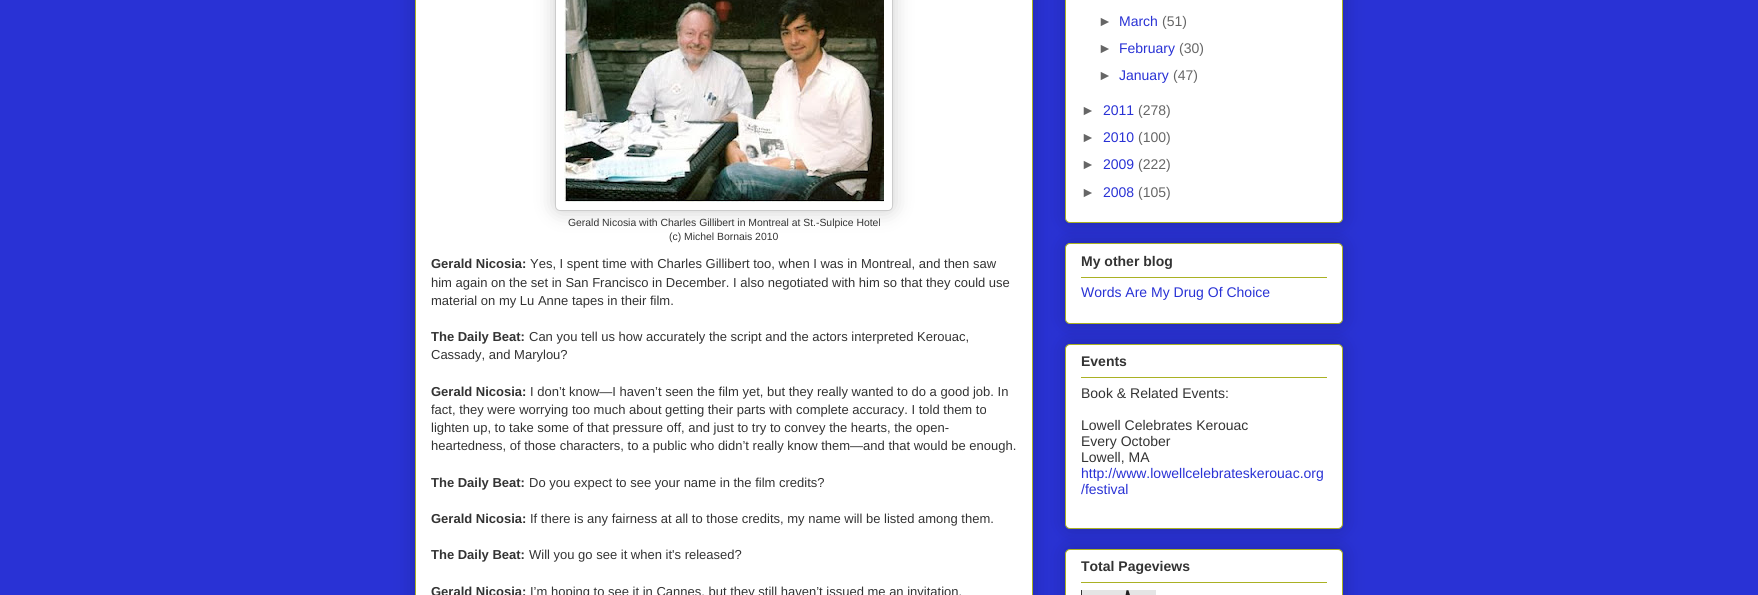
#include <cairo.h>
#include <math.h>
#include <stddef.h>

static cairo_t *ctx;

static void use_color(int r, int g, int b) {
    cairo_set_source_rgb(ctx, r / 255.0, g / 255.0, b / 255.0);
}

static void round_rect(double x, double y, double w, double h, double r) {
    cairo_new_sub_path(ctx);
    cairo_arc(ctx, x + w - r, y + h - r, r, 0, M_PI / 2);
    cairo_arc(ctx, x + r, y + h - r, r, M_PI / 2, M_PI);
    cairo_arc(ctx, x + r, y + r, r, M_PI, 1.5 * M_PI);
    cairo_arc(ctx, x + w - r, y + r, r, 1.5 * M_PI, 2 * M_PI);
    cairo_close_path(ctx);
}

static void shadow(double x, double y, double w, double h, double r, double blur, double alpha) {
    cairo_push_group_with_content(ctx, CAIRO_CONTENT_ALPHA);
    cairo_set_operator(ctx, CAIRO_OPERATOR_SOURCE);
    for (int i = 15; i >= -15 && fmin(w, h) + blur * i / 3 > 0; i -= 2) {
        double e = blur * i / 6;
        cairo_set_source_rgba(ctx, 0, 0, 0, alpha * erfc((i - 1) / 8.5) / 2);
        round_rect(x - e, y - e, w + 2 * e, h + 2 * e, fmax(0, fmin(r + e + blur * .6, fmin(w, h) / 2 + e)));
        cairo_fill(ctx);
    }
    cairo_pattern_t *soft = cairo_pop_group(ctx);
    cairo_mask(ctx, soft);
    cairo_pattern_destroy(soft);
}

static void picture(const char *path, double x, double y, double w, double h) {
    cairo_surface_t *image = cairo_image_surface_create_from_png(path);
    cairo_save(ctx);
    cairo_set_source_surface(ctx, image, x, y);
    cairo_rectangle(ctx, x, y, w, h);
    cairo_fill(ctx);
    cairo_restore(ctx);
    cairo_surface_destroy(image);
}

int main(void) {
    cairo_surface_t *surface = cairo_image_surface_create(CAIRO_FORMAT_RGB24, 1758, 595);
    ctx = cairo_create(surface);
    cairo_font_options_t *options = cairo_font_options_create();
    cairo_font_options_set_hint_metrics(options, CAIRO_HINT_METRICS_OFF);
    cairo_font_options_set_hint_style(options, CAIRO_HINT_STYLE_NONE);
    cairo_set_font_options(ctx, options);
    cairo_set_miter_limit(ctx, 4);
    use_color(41, 50, 213);
    cairo_paint(ctx);
    use_color(0, 0, 0);
    shadow(415, -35, 618, 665, 5, 10, 0.2);
    use_color(255, 255, 255);
    cairo_rectangle(ctx, 415.5, -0.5, 617, 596);
    cairo_fill_preserve(ctx);
    use_color(170, 177, 35);
    cairo_set_line_width(ctx, 1);
    cairo_stroke(ctx);
    use_color(0, 0, 0);
    shadow(555, -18, 338, 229, 5, 10, 0.2);
    use_color(255, 255, 255);
    round_rect(555.5, -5.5, 337, 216, 4.5);
    cairo_fill_preserve(ctx);
    use_color(204, 204, 204);
    cairo_stroke(ctx);
    picture("img1.png", 564, 0, 320, 202);
    cairo_select_font_face(ctx, "Liberation Sans", CAIRO_FONT_SLANT_NORMAL, CAIRO_FONT_WEIGHT_NORMAL);
    cairo_set_font_size(ctx, 10.4);
    use_color(51, 51, 51);
    cairo_move_to(ctx, 568, 226);
    cairo_show_text(ctx, "Gerald Nicosia with Charles Gillibert in Montreal at St.-Sulpice Hotel");
    cairo_move_to(ctx, 669, 240);
    cairo_show_text(ctx, "(c) Michel Bornais 2010");
    cairo_select_font_face(ctx, "Liberation Sans", CAIRO_FONT_SLANT_NORMAL, CAIRO_FONT_WEIGHT_BOLD);
    cairo_set_font_size(ctx, 13);
    cairo_move_to(ctx, 431, 268);
    cairo_show_text(ctx, "Gerald Nicosia:");
    cairo_select_font_face(ctx, "Liberation Sans", CAIRO_FONT_SLANT_NORMAL, CAIRO_FONT_WEIGHT_NORMAL);
    cairo_move_to(ctx, 530, 268);
    cairo_show_text(ctx, "Yes, I spent time with Charles Gillibert too, when I was in Montreal, and then saw");
    cairo_move_to(ctx, 431, 287);
    cairo_show_text(ctx, "him again on the set in San Francisco in December. I also negotiated with him so that they could use");
    cairo_move_to(ctx, 431, 305);
    cairo_show_text(ctx, "material on my Lu Anne tapes in their film.");
    cairo_select_font_face(ctx, "Liberation Sans", CAIRO_FONT_SLANT_NORMAL, CAIRO_FONT_WEIGHT_BOLD);
    cairo_move_to(ctx, 431, 341);
    cairo_show_text(ctx, "The Daily Beat:");
    cairo_select_font_face(ctx, "Liberation Sans", CAIRO_FONT_SLANT_NORMAL, CAIRO_FONT_WEIGHT_NORMAL);
    cairo_move_to(ctx, 529, 341);
    cairo_show_text(ctx, "Can you tell us how accurately the script and the actors interpreted Kerouac,");
    cairo_move_to(ctx, 431, 359);
    cairo_show_text(ctx, "Cassady, and Marylou?");
    cairo_select_font_face(ctx, "Liberation Sans", CAIRO_FONT_SLANT_NORMAL, CAIRO_FONT_WEIGHT_BOLD);
    cairo_move_to(ctx, 431, 396);
    cairo_show_text(ctx, "Gerald Nicosia:");
    cairo_select_font_face(ctx, "Liberation Sans", CAIRO_FONT_SLANT_NORMAL, CAIRO_FONT_WEIGHT_NORMAL);
    cairo_move_to(ctx, 530, 396);
    cairo_show_text(ctx, "I don’t know—I haven’t seen the film yet, but they really wanted to do a good job. In");
    cairo_move_to(ctx, 431, 414);
    cairo_show_text(ctx, "fact, they were worrying too much about getting their parts with complete accuracy. I told them to");
    cairo_move_to(ctx, 431, 432);
    cairo_show_text(ctx, "lighten up, to take some of that pressure off, and just to try to convey the hearts, the open-");
    cairo_move_to(ctx, 431, 450);
    cairo_show_text(ctx, "heartedness, of those characters, to a public who didn’t really know them—and that would be enough.");
    cairo_select_font_face(ctx, "Liberation Sans", CAIRO_FONT_SLANT_NORMAL, CAIRO_FONT_WEIGHT_BOLD);
    cairo_move_to(ctx, 431, 487);
    cairo_show_text(ctx, "The Daily Beat:");
    cairo_select_font_face(ctx, "Liberation Sans", CAIRO_FONT_SLANT_NORMAL, CAIRO_FONT_WEIGHT_NORMAL);
    cairo_move_to(ctx, 529, 487);
    cairo_show_text(ctx, "Do you expect to see your name in the film credits?");
    cairo_select_font_face(ctx, "Liberation Sans", CAIRO_FONT_SLANT_NORMAL, CAIRO_FONT_WEIGHT_BOLD);
    cairo_move_to(ctx, 431, 523);
    cairo_show_text(ctx, "Gerald Nicosia:");
    cairo_select_font_face(ctx, "Liberation Sans", CAIRO_FONT_SLANT_NORMAL, CAIRO_FONT_WEIGHT_NORMAL);
    cairo_move_to(ctx, 530, 523);
    cairo_show_text(ctx, "If there is any fairness at all to those credits, my name will be listed among them.");
    cairo_select_font_face(ctx, "Liberation Sans", CAIRO_FONT_SLANT_NORMAL, CAIRO_FONT_WEIGHT_BOLD);
    cairo_move_to(ctx, 431, 559);
    cairo_show_text(ctx, "The Daily Beat:");
    cairo_select_font_face(ctx, "Liberation Sans", CAIRO_FONT_SLANT_NORMAL, CAIRO_FONT_WEIGHT_NORMAL);
    cairo_move_to(ctx, 529, 559);
    cairo_show_text(ctx, "Will you go see it when it's released?");
    cairo_select_font_face(ctx, "Liberation Sans", CAIRO_FONT_SLANT_NORMAL, CAIRO_FONT_WEIGHT_BOLD);
    cairo_move_to(ctx, 431, 596);
    cairo_show_text(ctx, "Gerald Nicosia:");
    cairo_select_font_face(ctx, "Liberation Sans", CAIRO_FONT_SLANT_NORMAL, CAIRO_FONT_WEIGHT_NORMAL);
    cairo_move_to(ctx, 530, 596);
    cairo_show_text(ctx, "I’m hoping to see it in Cannes, but they still haven’t issued me an invitation.");
    use_color(0, 0, 0);
    shadow(1065, -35, 278, 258, 5, 10, 0.2);
    use_color(255, 255, 255);
    round_rect(1065.5, -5.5, 277, 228, 4.5);
    cairo_fill_preserve(ctx);
    use_color(170, 177, 35);
    cairo_stroke(ctx);
    cairo_set_font_size(ctx, 14);
    use_color(102, 102, 102);
    cairo_move_to(ctx, 1098, 26);
    cairo_show_text(ctx, "►");
    use_color(41, 50, 213);
    cairo_move_to(ctx, 1119, 26);
    cairo_show_text(ctx, "March");
    use_color(102, 102, 102);
    cairo_move_to(ctx, 1162, 26);
    cairo_show_text(ctx, "(51)");
    cairo_move_to(ctx, 1098, 53);
    cairo_show_text(ctx, "►");
    use_color(41, 50, 213);
    cairo_move_to(ctx, 1119, 53);
    cairo_show_text(ctx, "February");
    use_color(102, 102, 102);
    cairo_move_to(ctx, 1179, 53);
    cairo_show_text(ctx, "(30)");
    cairo_move_to(ctx, 1098, 80);
    cairo_show_text(ctx, "►");
    use_color(41, 50, 213);
    cairo_move_to(ctx, 1119, 80);
    cairo_show_text(ctx, "January");
    use_color(102, 102, 102);
    cairo_move_to(ctx, 1173, 80);
    cairo_show_text(ctx, "(47)");
    cairo_move_to(ctx, 1081, 115);
    cairo_show_text(ctx, "►");
    use_color(41, 50, 213);
    cairo_move_to(ctx, 1103, 115);
    cairo_show_text(ctx, "2011");
    use_color(102, 102, 102);
    cairo_move_to(ctx, 1138, 115);
    cairo_show_text(ctx, "(278)");
    cairo_move_to(ctx, 1081, 142);
    cairo_show_text(ctx, "►");
    use_color(41, 50, 213);
    cairo_move_to(ctx, 1103, 142);
    cairo_show_text(ctx, "2010");
    use_color(102, 102, 102);
    cairo_move_to(ctx, 1138, 142);
    cairo_show_text(ctx, "(100)");
    cairo_move_to(ctx, 1081, 169);
    cairo_show_text(ctx, "►");
    use_color(41, 50, 213);
    cairo_move_to(ctx, 1103, 169);
    cairo_show_text(ctx, "2009");
    use_color(102, 102, 102);
    cairo_move_to(ctx, 1138, 169);
    cairo_show_text(ctx, "(222)");
    cairo_move_to(ctx, 1081, 197);
    cairo_show_text(ctx, "►");
    use_color(41, 50, 213);
    cairo_move_to(ctx, 1103, 197);
    cairo_show_text(ctx, "2008");
    use_color(102, 102, 102);
    cairo_move_to(ctx, 1138, 197);
    cairo_show_text(ctx, "(105)");
    use_color(0, 0, 0);
    shadow(1065, 243, 278, 81, 5, 10, 0.2);
    use_color(255, 255, 255);
    round_rect(1065.5, 243.5, 277, 80, 4.5);
    cairo_fill_preserve(ctx);
    use_color(170, 177, 35);
    cairo_stroke(ctx);
    cairo_select_font_face(ctx, "Liberation Sans", CAIRO_FONT_SLANT_NORMAL, CAIRO_FONT_WEIGHT_BOLD);
    use_color(51, 51, 51);
    cairo_move_to(ctx, 1081, 266);
    cairo_show_text(ctx, "My other blog");
    use_color(170, 177, 35);
    cairo_rectangle(ctx, 1081, 277, 246, 1);
    cairo_fill(ctx);
    cairo_select_font_face(ctx, "Liberation Sans", CAIRO_FONT_SLANT_NORMAL, CAIRO_FONT_WEIGHT_NORMAL);
    use_color(41, 50, 213);
    cairo_move_to(ctx, 1081, 297);
    cairo_show_text(ctx, "Words Are My Drug Of Choice");
    use_color(0, 0, 0);
    shadow(1065, 344, 278, 185, 5, 10, 0.2);
    use_color(255, 255, 255);
    round_rect(1065.5, 344.5, 277, 184, 4.5);
    cairo_fill_preserve(ctx);
    use_color(170, 177, 35);
    cairo_stroke(ctx);
    cairo_select_font_face(ctx, "Liberation Sans", CAIRO_FONT_SLANT_NORMAL, CAIRO_FONT_WEIGHT_BOLD);
    use_color(51, 51, 51);
    cairo_move_to(ctx, 1081, 366);
    cairo_show_text(ctx, "Events");
    use_color(170, 177, 35);
    cairo_rectangle(ctx, 1081, 377, 246, 1);
    cairo_fill(ctx);
    cairo_select_font_face(ctx, "Liberation Sans", CAIRO_FONT_SLANT_NORMAL, CAIRO_FONT_WEIGHT_NORMAL);
    use_color(51, 51, 51);
    cairo_move_to(ctx, 1081, 398);
    cairo_show_text(ctx, "Book & Related Events:");
    cairo_move_to(ctx, 1081, 430);
    cairo_show_text(ctx, "Lowell Celebrates Kerouac");
    cairo_move_to(ctx, 1081, 446);
    cairo_show_text(ctx, "Every October");
    cairo_move_to(ctx, 1081, 462);
    cairo_show_text(ctx, "Lowell, MA");
    use_color(41, 50, 213);
    cairo_move_to(ctx, 1081, 478);
    cairo_show_text(ctx, "http://www.lowellcelebrateskerouac.org");
    cairo_move_to(ctx, 1081, 494);
    cairo_show_text(ctx, "/festival");
    use_color(0, 0, 0);
    shadow(1065, 549, 278, 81, 5, 10, 0.2);
    use_color(255, 255, 255);
    round_rect(1065.5, 549.5, 277, 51, 4.5);
    cairo_fill_preserve(ctx);
    use_color(170, 177, 35);
    cairo_stroke(ctx);
    cairo_select_font_face(ctx, "Liberation Sans", CAIRO_FONT_SLANT_NORMAL, CAIRO_FONT_WEIGHT_BOLD);
    use_color(51, 51, 51);
    cairo_move_to(ctx, 1081, 571);
    cairo_show_text(ctx, "Total Pageviews");
    use_color(170, 177, 35);
    cairo_rectangle(ctx, 1081, 582, 246, 1);
    cairo_fill(ctx);
    picture("img2.png", 1081, 590, 75, 5);
    cairo_surface_write_to_png(surface, "result.png");
    cairo_font_options_destroy(options);
    cairo_destroy(ctx);
    cairo_surface_destroy(surface);
    return 0;
}
